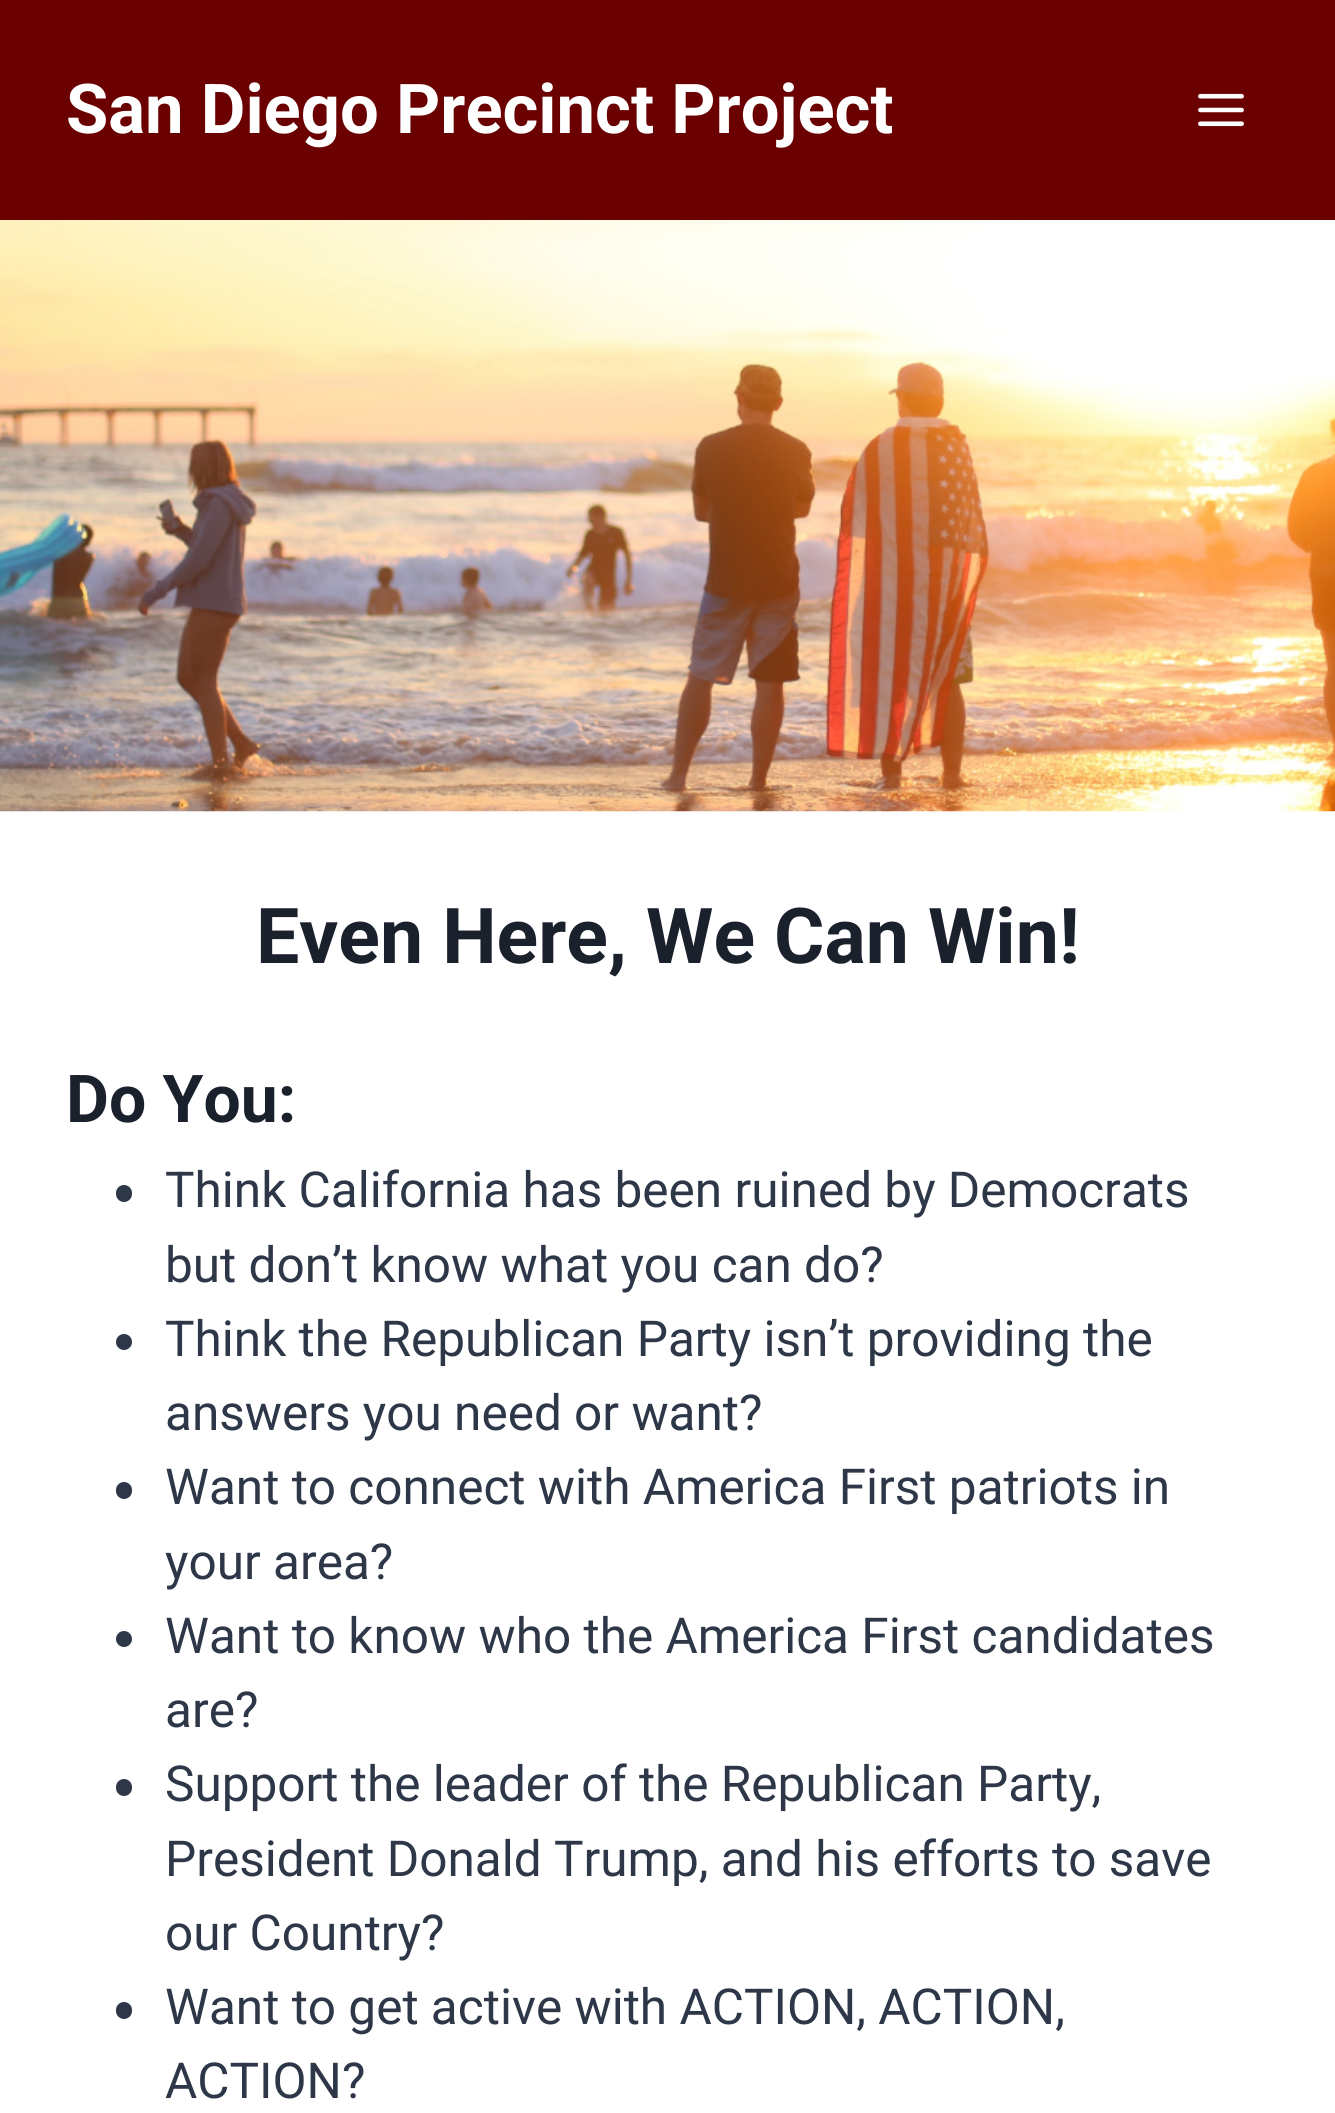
#include <cairo.h>
#include <math.h>
#include <stddef.h>

static cairo_t *ctx;

static void use_color(int r, int g, int b) {
    cairo_set_source_rgb(ctx, r / 255.0, g / 255.0, b / 255.0);
}

static void round_rect(double x, double y, double w, double h, double r) {
    cairo_new_sub_path(ctx);
    cairo_arc(ctx, x + w - r, y + h - r, r, 0, M_PI / 2);
    cairo_arc(ctx, x + r, y + h - r, r, M_PI / 2, M_PI);
    cairo_arc(ctx, x + r, y + r, r, M_PI, 1.5 * M_PI);
    cairo_arc(ctx, x + w - r, y + r, r, 1.5 * M_PI, 2 * M_PI);
    cairo_close_path(ctx);
}

static void picture(const char *path, double x, double y, double w, double h) {
    cairo_surface_t *image = cairo_image_surface_create_from_png(path);
    cairo_save(ctx);
    cairo_set_source_surface(ctx, image, x, y);
    cairo_rectangle(ctx, x, y, w, h);
    cairo_fill(ctx);
    cairo_restore(ctx);
    cairo_surface_destroy(image);
}

int main(void) {
    cairo_surface_t *surface = cairo_image_surface_create(CAIRO_FORMAT_RGB24, 1335, 2113);
    ctx = cairo_create(surface);
    cairo_font_options_t *options = cairo_font_options_create();
    cairo_font_options_set_hint_metrics(options, CAIRO_HINT_METRICS_OFF);
    cairo_font_options_set_hint_style(options, CAIRO_HINT_STYLE_NONE);
    cairo_set_font_options(ctx, options);
    cairo_set_miter_limit(ctx, 4);
    use_color(255, 255, 255);
    cairo_paint(ctx);
    use_color(106, 0, 0);
    cairo_rectangle(ctx, 0, 0, 1335, 220);
    cairo_fill(ctx);
    cairo_select_font_face(ctx, "Roboto", CAIRO_FONT_SLANT_NORMAL, CAIRO_FONT_WEIGHT_BOLD);
    cairo_set_font_size(ctx, 68.75);
    use_color(255, 255, 255);
    cairo_move_to(ctx, 66, 133);
    cairo_show_text(ctx, "San Diego Precinct Project");
    picture("img1.png", 1198, 93, 46, 34);
    picture("img2.png", 0, 220, 1335, 592);
    cairo_set_font_size(ctx, 77);
    use_color(26, 32, 44);
    cairo_move_to(ctx, 256, 963);
    cairo_show_text(ctx, "Even Here, We Can Win!");
    cairo_set_font_size(ctx, 66);
    cairo_move_to(ctx, 66, 1122);
    cairo_show_text(ctx, "Do You:");
    use_color(45, 55, 72);
    round_rect(116, 1185, 16, 17, 8);
    cairo_fill(ctx);
    cairo_select_font_face(ctx, "Roboto", CAIRO_FONT_SLANT_NORMAL, CAIRO_FONT_WEIGHT_NORMAL);
    cairo_set_font_size(ctx, 49.5);
    cairo_move_to(ctx, 165, 1207);
    cairo_show_text(ctx, "Think California has been ruined by Democrats");
    cairo_move_to(ctx, 165, 1282);
    cairo_show_text(ctx, "but don’t know what you can do?");
    cairo_new_path(ctx);
    cairo_arc(ctx, 124, 1342, 8, 0, 2 * M_PI);
    cairo_fill(ctx);
    cairo_move_to(ctx, 165, 1356);
    cairo_show_text(ctx, "Think the Republican Party isn’t providing the");
    cairo_move_to(ctx, 165, 1430);
    cairo_show_text(ctx, "answers you need or want?");
    round_rect(116, 1482, 16, 17, 8);
    cairo_fill(ctx);
    cairo_move_to(ctx, 165, 1504);
    cairo_show_text(ctx, "Want to connect with America First patriots in");
    cairo_move_to(ctx, 165, 1579);
    cairo_show_text(ctx, "your area?");
    cairo_new_path(ctx);
    cairo_arc(ctx, 124, 1639, 8, 0, 2 * M_PI);
    cairo_fill(ctx);
    cairo_move_to(ctx, 165, 1653);
    cairo_show_text(ctx, "Want to know who the America First candidates");
    cairo_move_to(ctx, 165, 1727);
    cairo_show_text(ctx, "are?");
    round_rect(116, 1779, 16, 17, 8);
    cairo_fill(ctx);
    cairo_move_to(ctx, 165, 1801);
    cairo_show_text(ctx, "Support the leader of the Republican Party,");
    cairo_move_to(ctx, 165, 1876);
    cairo_show_text(ctx, "President Donald Trump, and his efforts to save");
    cairo_move_to(ctx, 165, 1950);
    cairo_show_text(ctx, "our Country?");
    round_rect(116, 2002, 16, 17, 8);
    cairo_fill(ctx);
    cairo_move_to(ctx, 165, 2024);
    cairo_show_text(ctx, "Want to get active with ACTION, ACTION,");
    cairo_move_to(ctx, 165, 2098);
    cairo_show_text(ctx, "ACTION?");
    cairo_surface_write_to_png(surface, "result.png");
    cairo_font_options_destroy(options);
    cairo_destroy(ctx);
    cairo_surface_destroy(surface);
    return 0;
}
